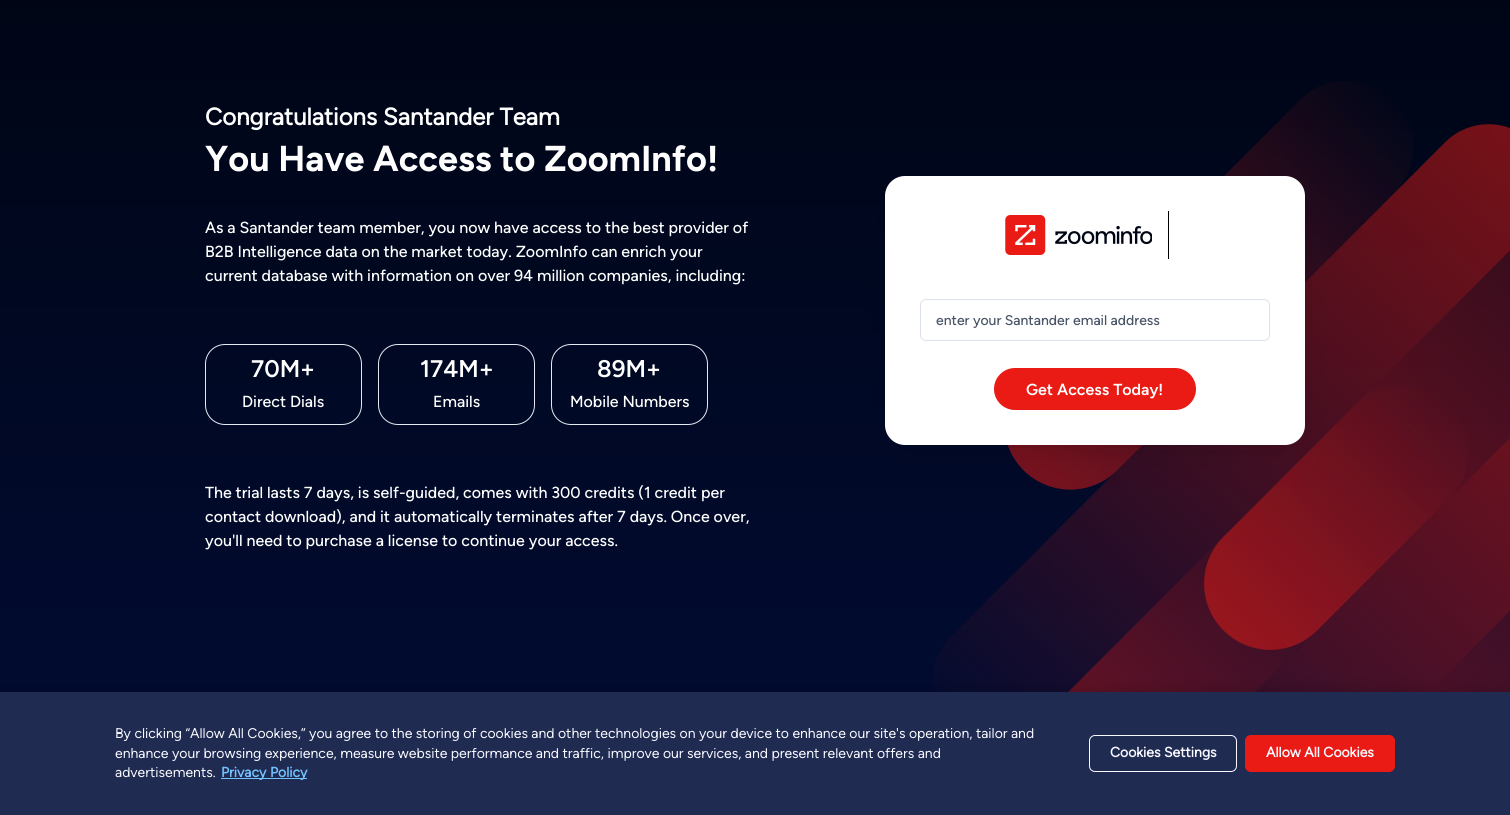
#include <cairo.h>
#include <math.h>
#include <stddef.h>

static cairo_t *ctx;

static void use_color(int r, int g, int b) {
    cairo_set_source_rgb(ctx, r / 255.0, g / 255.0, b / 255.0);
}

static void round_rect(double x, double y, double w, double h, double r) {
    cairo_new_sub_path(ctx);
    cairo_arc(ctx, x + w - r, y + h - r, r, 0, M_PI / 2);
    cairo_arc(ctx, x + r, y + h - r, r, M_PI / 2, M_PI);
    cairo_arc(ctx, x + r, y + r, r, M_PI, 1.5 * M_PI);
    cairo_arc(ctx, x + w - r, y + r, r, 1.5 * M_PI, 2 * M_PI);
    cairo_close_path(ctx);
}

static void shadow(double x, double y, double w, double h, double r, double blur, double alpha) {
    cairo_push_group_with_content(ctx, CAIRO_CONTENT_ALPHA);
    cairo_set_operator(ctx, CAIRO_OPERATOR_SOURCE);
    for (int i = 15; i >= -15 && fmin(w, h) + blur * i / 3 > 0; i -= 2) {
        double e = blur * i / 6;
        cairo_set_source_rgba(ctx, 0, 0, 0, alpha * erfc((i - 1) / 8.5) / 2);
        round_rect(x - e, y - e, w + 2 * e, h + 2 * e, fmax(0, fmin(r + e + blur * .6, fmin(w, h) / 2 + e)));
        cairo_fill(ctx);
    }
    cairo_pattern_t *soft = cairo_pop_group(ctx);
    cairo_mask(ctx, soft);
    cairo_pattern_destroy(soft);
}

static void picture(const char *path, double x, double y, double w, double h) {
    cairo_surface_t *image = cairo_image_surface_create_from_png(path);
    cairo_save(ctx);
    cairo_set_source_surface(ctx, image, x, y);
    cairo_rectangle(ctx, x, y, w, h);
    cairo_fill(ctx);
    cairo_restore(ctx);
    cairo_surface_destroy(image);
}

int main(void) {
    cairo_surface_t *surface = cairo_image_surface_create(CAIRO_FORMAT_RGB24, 1510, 815);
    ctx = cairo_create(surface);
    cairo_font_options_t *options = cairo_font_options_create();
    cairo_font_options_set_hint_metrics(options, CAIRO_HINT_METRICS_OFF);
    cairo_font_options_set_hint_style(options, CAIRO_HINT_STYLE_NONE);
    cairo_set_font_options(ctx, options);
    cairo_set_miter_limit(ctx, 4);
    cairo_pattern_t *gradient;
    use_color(255, 255, 255);
    cairo_paint(ctx);
    gradient = cairo_pattern_create_linear(755, -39, 755, 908);
    cairo_pattern_add_color_stop_rgba(gradient, 0, 0, 0.02, 0.078, 1);
    cairo_pattern_add_color_stop_rgba(gradient, 1, 0.004, 0.051, 0.224, 1);
    cairo_set_source(ctx, gradient);
    cairo_pattern_destroy(gradient);
    cairo_rectangle(ctx, 0, 0, 1510, 692);
    cairo_fill(ctx);
    picture("img1.png", 933, 81, 577, 611);
    cairo_select_font_face(ctx, "Figtree", CAIRO_FONT_SLANT_NORMAL, CAIRO_FONT_WEIGHT_BOLD);
    cairo_set_font_size(ctx, 24);
    use_color(255, 255, 255);
    cairo_move_to(ctx, 205, 125);
    cairo_show_text(ctx, "Congratulations Santander Team");
    cairo_select_font_face(ctx, "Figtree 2", CAIRO_FONT_SLANT_NORMAL, CAIRO_FONT_WEIGHT_BOLD);
    cairo_set_font_size(ctx, 36);
    cairo_move_to(ctx, 205, 171);
    cairo_show_text(ctx, "You Have Access to ZoomInfo!");
    cairo_select_font_face(ctx, "Figtree Medium", CAIRO_FONT_SLANT_NORMAL, CAIRO_FONT_WEIGHT_NORMAL);
    cairo_set_font_size(ctx, 16);
    cairo_move_to(ctx, 205, 233);
    cairo_show_text(ctx, "As a Santander team member, you now have access to the best provider of");
    cairo_move_to(ctx, 205, 257);
    cairo_show_text(ctx, "B2B Intelligence data on the market today. ZoomInfo can enrich your");
    cairo_move_to(ctx, 205, 281);
    cairo_show_text(ctx, "current database with information on over 94 million companies, including:");
    round_rect(205.5, 344.5, 156, 80, 19.5);
    use_color(230, 232, 242);
    cairo_set_line_width(ctx, 1);
    cairo_stroke(ctx);
    cairo_select_font_face(ctx, "Figtree SemiBold", CAIRO_FONT_SLANT_NORMAL, CAIRO_FONT_WEIGHT_NORMAL);
    cairo_set_font_size(ctx, 24);
    use_color(255, 255, 255);
    cairo_move_to(ctx, 251, 377);
    cairo_show_text(ctx, "70M+");
    cairo_select_font_face(ctx, "Figtree Medium", CAIRO_FONT_SLANT_NORMAL, CAIRO_FONT_WEIGHT_NORMAL);
    cairo_set_font_size(ctx, 16);
    cairo_move_to(ctx, 242, 407);
    cairo_show_text(ctx, "Direct Dials");
    round_rect(378.5, 344.5, 156, 80, 19.5);
    use_color(230, 232, 242);
    cairo_stroke(ctx);
    cairo_select_font_face(ctx, "Figtree SemiBold", CAIRO_FONT_SLANT_NORMAL, CAIRO_FONT_WEIGHT_NORMAL);
    cairo_set_font_size(ctx, 24);
    use_color(255, 255, 255);
    cairo_move_to(ctx, 420, 377);
    cairo_show_text(ctx, "174M+");
    cairo_select_font_face(ctx, "Figtree Medium", CAIRO_FONT_SLANT_NORMAL, CAIRO_FONT_WEIGHT_NORMAL);
    cairo_set_font_size(ctx, 16);
    cairo_move_to(ctx, 433, 407);
    cairo_show_text(ctx, "Emails");
    round_rect(551.5, 344.5, 156, 80, 19.5);
    use_color(230, 232, 242);
    cairo_stroke(ctx);
    cairo_select_font_face(ctx, "Figtree SemiBold", CAIRO_FONT_SLANT_NORMAL, CAIRO_FONT_WEIGHT_NORMAL);
    cairo_set_font_size(ctx, 24);
    use_color(255, 255, 255);
    cairo_move_to(ctx, 597, 377);
    cairo_show_text(ctx, "89M+");
    cairo_select_font_face(ctx, "Figtree Medium", CAIRO_FONT_SLANT_NORMAL, CAIRO_FONT_WEIGHT_NORMAL);
    cairo_set_font_size(ctx, 16);
    cairo_move_to(ctx, 570, 407);
    cairo_show_text(ctx, "Mobile Numbers");
    cairo_move_to(ctx, 205, 498);
    cairo_show_text(ctx, "The trial lasts 7 days, is self-guided, comes with 300 credits (1 credit per");
    cairo_move_to(ctx, 205, 522);
    cairo_show_text(ctx, "contact download), and it automatically terminates after 7 days. Once over,");
    cairo_move_to(ctx, 205, 546);
    cairo_show_text(ctx, "you'll need to purchase a license to continue your access.");
    use_color(0, 0, 0);
    shadow(908, 208, 374, 223, 0, 20, 0.4);
    use_color(255, 255, 255);
    round_rect(885, 176, 420, 269, 20);
    cairo_fill(ctx);
    picture("img2.png", 1005, 215, 147, 40);
    use_color(0, 0, 0);
    cairo_rectangle(ctx, 1168, 211, 1, 48);
    cairo_fill(ctx);
    round_rect(920.5, 299.5, 349, 41, 5.5);
    use_color(218, 224, 236);
    cairo_stroke(ctx);
    cairo_set_font_size(ctx, 14);
    use_color(73, 85, 103);
    cairo_move_to(ctx, 936, 325);
    cairo_show_text(ctx, "enter your Santander email address");
    use_color(234, 27, 21);
    round_rect(994, 368, 202, 42, 21);
    cairo_fill(ctx);
    cairo_select_font_face(ctx, "Figtree SemiBold", CAIRO_FONT_SLANT_NORMAL, CAIRO_FONT_WEIGHT_NORMAL);
    cairo_set_font_size(ctx, 16);
    use_color(255, 255, 255);
    cairo_move_to(ctx, 1026, 395);
    cairo_show_text(ctx, "Get Access Today!");
    use_color(0, 0, 0);
    shadow(0, 692, 1510, 123, 0, 9, 0.2);
    use_color(32, 43, 82);
    cairo_rectangle(ctx, 0, 692, 1510, 123);
    cairo_fill(ctx);
    cairo_select_font_face(ctx, "Figtree", CAIRO_FONT_SLANT_NORMAL, CAIRO_FONT_WEIGHT_NORMAL);
    cairo_set_font_size(ctx, 14);
    use_color(248, 249, 255);
    cairo_move_to(ctx, 115, 738);
    cairo_show_text(ctx, "By clicking “Allow All Cookies,” you agree to the storing of cookies and other technologies on your device to enhance our site's operation, tailor and");
    cairo_move_to(ctx, 115, 758);
    cairo_show_text(ctx, "enhance your browsing experience, measure website performance and traffic, improve our services, and present relevant offers and");
    cairo_move_to(ctx, 115, 777);
    cairo_show_text(ctx, "advertisements.");
    use_color(115, 194, 255);
    cairo_rectangle(ctx, 221, 778, 86, 1);
    cairo_fill(ctx);
    cairo_select_font_face(ctx, "Figtree", CAIRO_FONT_SLANT_NORMAL, CAIRO_FONT_WEIGHT_BOLD);
    cairo_move_to(ctx, 221, 777);
    cairo_show_text(ctx, "Privacy Policy");
    round_rect(1089.5, 735.5, 147, 36, 5.5);
    use_color(248, 249, 255);
    cairo_stroke(ctx);
    cairo_move_to(ctx, 1110, 757);
    cairo_show_text(ctx, "Cookies Settings");
    use_color(234, 27, 21);
    round_rect(1245.5, 735.5, 149, 36, 5.5);
    cairo_fill_preserve(ctx);
    cairo_stroke(ctx);
    use_color(248, 249, 255);
    cairo_move_to(ctx, 1266, 757);
    cairo_show_text(ctx, "Allow All Cookies");
    cairo_surface_write_to_png(surface, "result.png");
    cairo_font_options_destroy(options);
    cairo_destroy(ctx);
    cairo_surface_destroy(surface);
    return 0;
}
